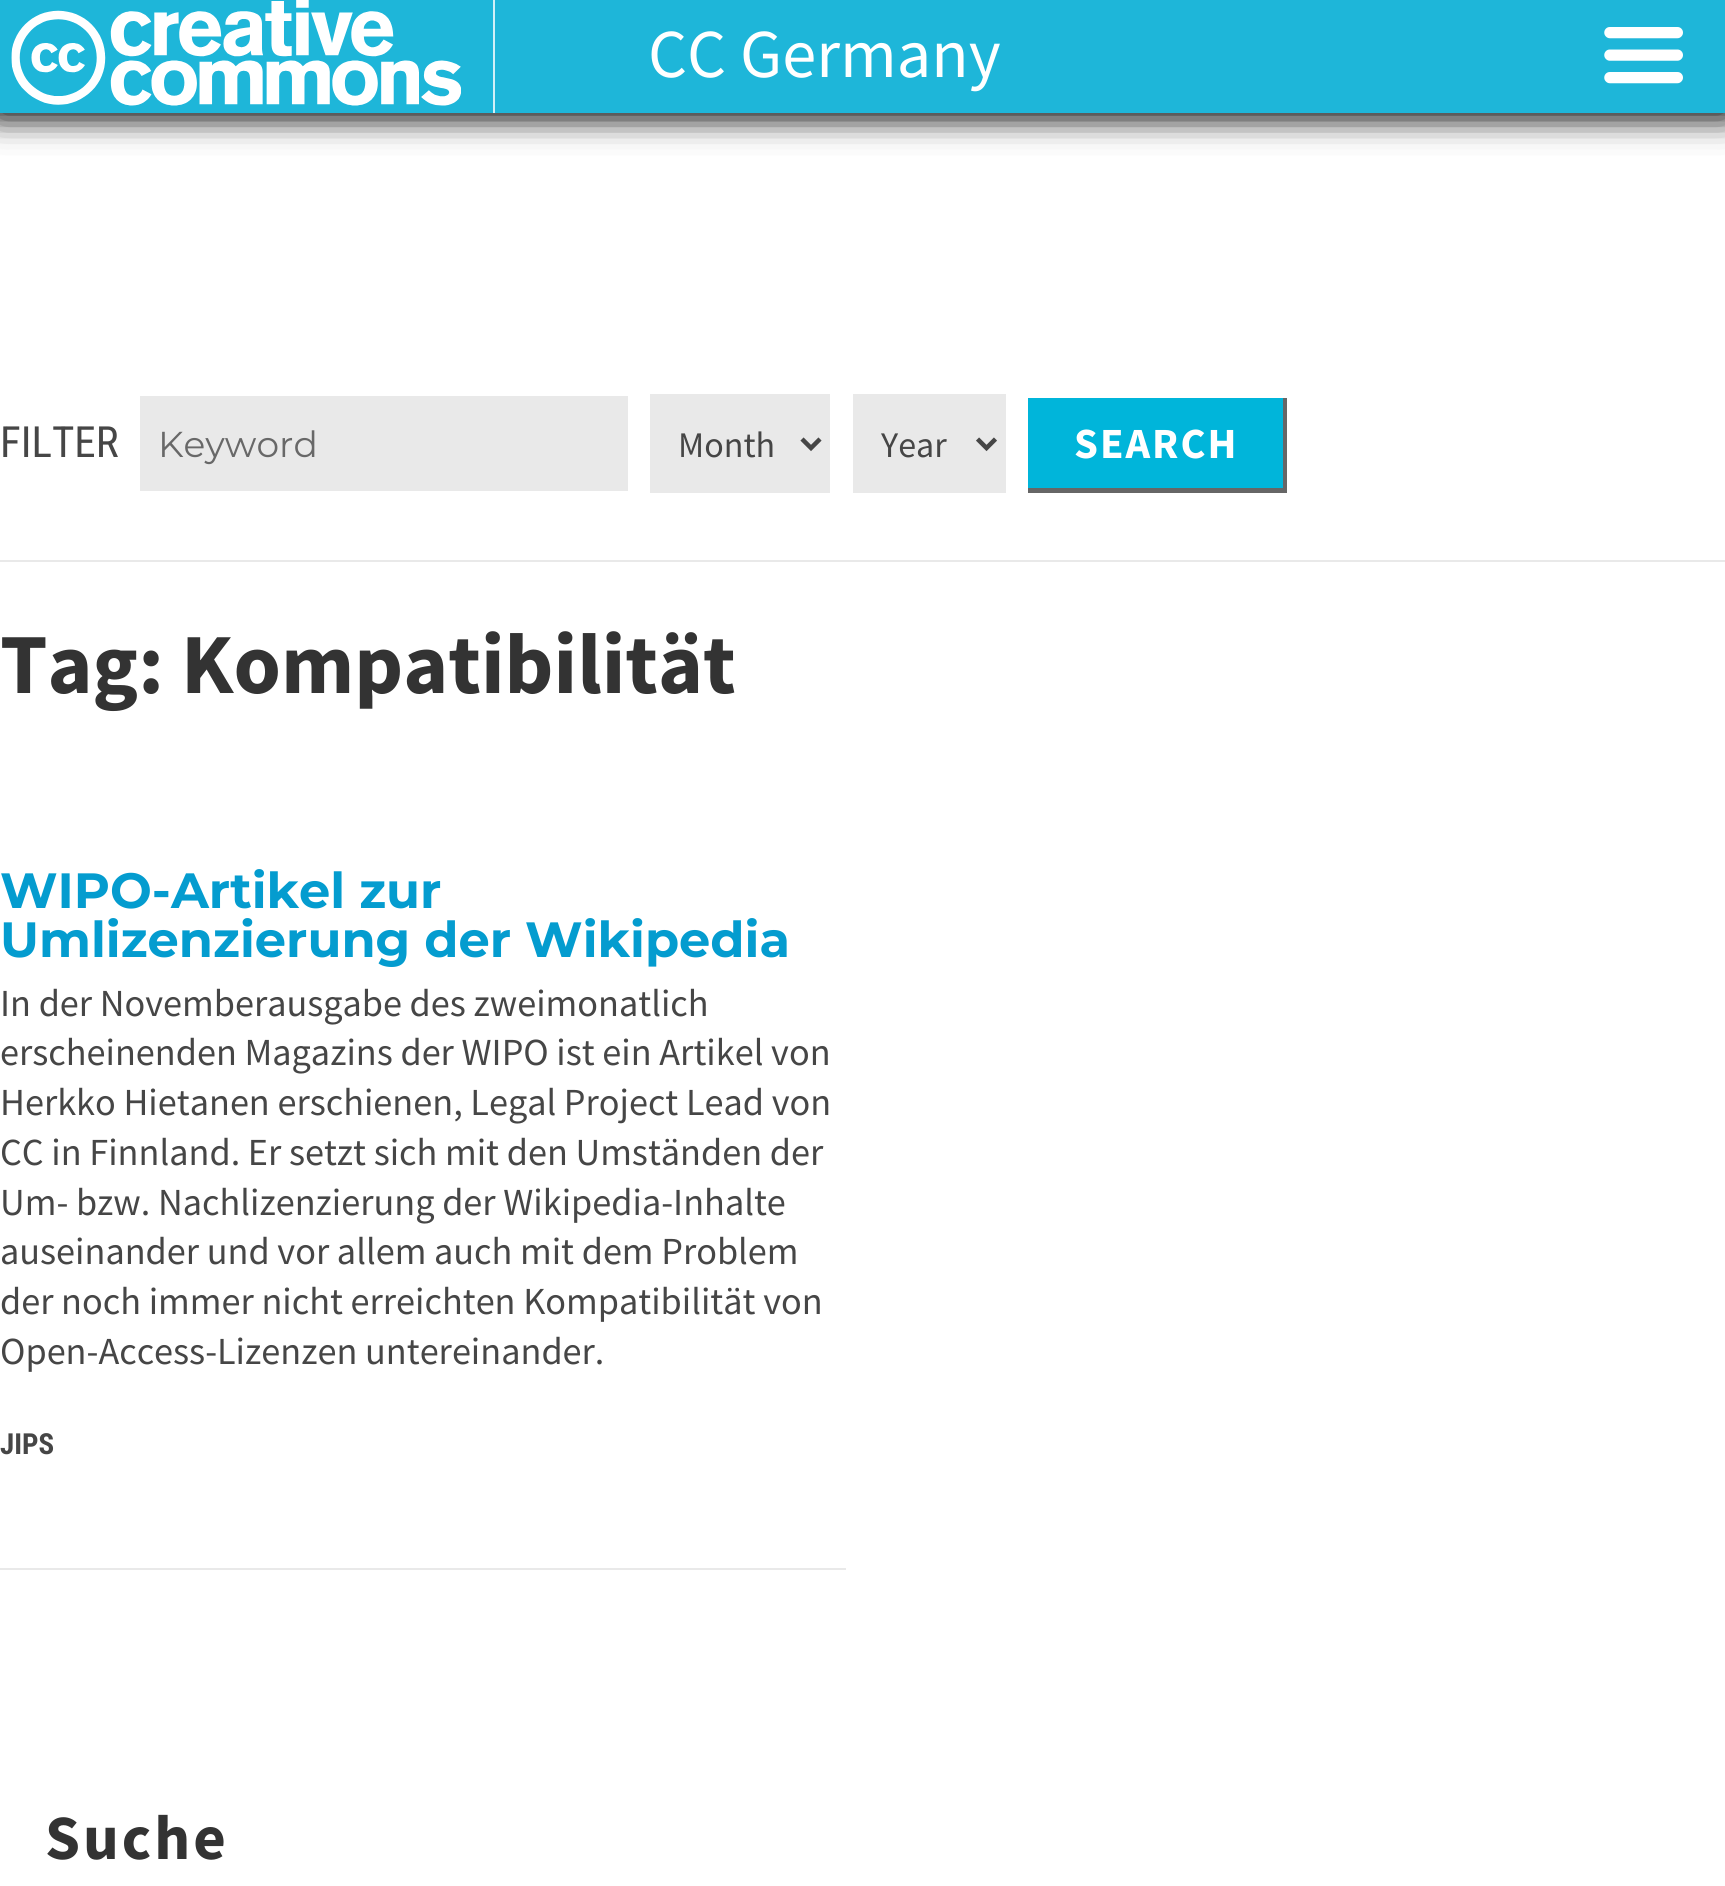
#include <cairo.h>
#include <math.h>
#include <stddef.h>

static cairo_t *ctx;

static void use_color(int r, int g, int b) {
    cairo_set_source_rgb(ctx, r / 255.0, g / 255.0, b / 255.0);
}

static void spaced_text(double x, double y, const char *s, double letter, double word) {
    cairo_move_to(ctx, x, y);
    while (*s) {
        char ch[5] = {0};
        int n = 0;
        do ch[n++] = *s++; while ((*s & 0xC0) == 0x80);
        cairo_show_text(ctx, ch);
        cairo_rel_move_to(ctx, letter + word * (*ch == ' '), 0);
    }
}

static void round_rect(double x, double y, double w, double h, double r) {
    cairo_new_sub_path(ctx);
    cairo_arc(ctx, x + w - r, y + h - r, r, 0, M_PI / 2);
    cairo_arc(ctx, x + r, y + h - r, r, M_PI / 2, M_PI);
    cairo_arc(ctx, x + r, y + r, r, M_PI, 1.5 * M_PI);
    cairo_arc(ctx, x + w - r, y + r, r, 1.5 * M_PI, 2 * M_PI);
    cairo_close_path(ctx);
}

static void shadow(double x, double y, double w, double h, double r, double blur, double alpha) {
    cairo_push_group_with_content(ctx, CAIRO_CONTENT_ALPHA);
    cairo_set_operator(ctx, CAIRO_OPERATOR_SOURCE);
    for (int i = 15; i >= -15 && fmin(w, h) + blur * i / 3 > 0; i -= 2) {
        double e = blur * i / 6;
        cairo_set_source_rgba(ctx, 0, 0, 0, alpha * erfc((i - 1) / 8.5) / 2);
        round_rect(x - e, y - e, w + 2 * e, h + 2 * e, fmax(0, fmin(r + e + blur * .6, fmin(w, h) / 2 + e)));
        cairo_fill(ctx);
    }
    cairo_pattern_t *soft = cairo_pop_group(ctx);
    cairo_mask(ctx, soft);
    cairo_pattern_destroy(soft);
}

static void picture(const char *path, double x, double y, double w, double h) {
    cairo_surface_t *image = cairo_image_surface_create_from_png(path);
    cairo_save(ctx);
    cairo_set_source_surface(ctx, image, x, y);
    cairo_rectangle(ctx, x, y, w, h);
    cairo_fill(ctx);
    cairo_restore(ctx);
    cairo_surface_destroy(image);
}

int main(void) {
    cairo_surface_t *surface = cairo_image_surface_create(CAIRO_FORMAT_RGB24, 1725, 1886);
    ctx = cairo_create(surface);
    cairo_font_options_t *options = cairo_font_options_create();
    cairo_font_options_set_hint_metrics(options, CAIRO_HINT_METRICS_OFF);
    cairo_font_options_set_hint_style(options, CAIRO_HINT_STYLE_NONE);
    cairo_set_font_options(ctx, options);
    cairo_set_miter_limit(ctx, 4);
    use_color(255, 255, 255);
    cairo_paint(ctx);
    use_color(0, 0, 0);
    shadow(-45, 0, 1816, 113, 0, 17, 0.8);
    shadow(0, 0, 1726, 113, 0, 17, 0.8);
    use_color(30, 182, 217);
    cairo_rectangle(ctx, 0, 0, 1725, 113);
    cairo_fill(ctx);
    use_color(210, 240, 247);
    cairo_rectangle(ctx, 493, 0, 2, 113);
    cairo_fill(ctx);
    picture("img1.png", 11, 0, 450, 106);
    cairo_select_font_face(ctx, "Source Sans Pro", CAIRO_FONT_SLANT_NORMAL, CAIRO_FONT_WEIGHT_NORMAL);
    cairo_set_font_size(ctx, 68.5);
    use_color(255, 255, 255);
    cairo_move_to(ctx, 648, 77);
    cairo_show_text(ctx, "CC Germany");
    picture("img2.png", 1604, 27, 79, 57);
    use_color(233, 233, 233);
    cairo_rectangle(ctx, 0, 560, 1725, 2);
    cairo_fill(ctx);
    cairo_select_font_face(ctx, "Roboto Condensed", CAIRO_FONT_SLANT_NORMAL, CAIRO_FONT_WEIGHT_NORMAL);
    cairo_set_font_size(ctx, 43);
    use_color(70, 70, 70);
    cairo_move_to(ctx, 0, 457);
    cairo_show_text(ctx, "FILTER");
    use_color(233, 233, 233);
    cairo_rectangle(ctx, 140, 396, 488, 95);
    cairo_fill(ctx);
    cairo_select_font_face(ctx, "Montserrat", CAIRO_FONT_SLANT_NORMAL, CAIRO_FONT_WEIGHT_NORMAL);
    cairo_set_font_size(ctx, 36);
    use_color(104, 104, 104);
    cairo_move_to(ctx, 158, 457);
    cairo_show_text(ctx, "Keyword");
    use_color(233, 233, 233);
    cairo_rectangle(ctx, 650, 394, 180, 99);
    cairo_fill(ctx);
    cairo_new_path(ctx);
    cairo_move_to(ctx, 802, 439);
    cairo_line_to(ctx, 811, 448);
    cairo_line_to(ctx, 820, 439);
    use_color(70, 70, 70);
    cairo_set_line_width(ctx, 4.5);
    cairo_stroke(ctx);
    cairo_select_font_face(ctx, "Source Sans Pro", CAIRO_FONT_SLANT_NORMAL, CAIRO_FONT_WEIGHT_NORMAL);
    cairo_move_to(ctx, 678, 457);
    cairo_show_text(ctx, "Month");
    use_color(233, 233, 233);
    cairo_rectangle(ctx, 853, 394, 153, 99);
    cairo_fill(ctx);
    cairo_new_path(ctx);
    cairo_move_to(ctx, 977.5, 439);
    cairo_line_to(ctx, 986.5, 448);
    cairo_line_to(ctx, 995.5, 439);
    use_color(70, 70, 70);
    cairo_stroke(ctx);
    cairo_move_to(ctx, 881, 457);
    cairo_show_text(ctx, "Year");
    use_color(102, 102, 102);
    cairo_set_fill_rule(ctx, CAIRO_FILL_RULE_EVEN_ODD);
    cairo_new_path(ctx);
    cairo_move_to(ctx, 1028, 398);
    cairo_line_to(ctx, 1028, 493);
    cairo_line_to(ctx, 1287, 493);
    cairo_line_to(ctx, 1287, 398);
    cairo_close_path(ctx);
    cairo_move_to(ctx, 1028, 398);
    cairo_line_to(ctx, 1028, 488);
    cairo_line_to(ctx, 1282, 488);
    cairo_line_to(ctx, 1282, 398);
    cairo_close_path(ctx);
    cairo_fill(ctx);
    use_color(0, 181, 218);
    cairo_rectangle(ctx, 1028, 398, 255, 90);
    cairo_fill(ctx);
    cairo_select_font_face(ctx, "Source Sans Pro", CAIRO_FONT_SLANT_NORMAL, CAIRO_FONT_WEIGHT_BOLD);
    cairo_set_font_size(ctx, 43);
    use_color(255, 255, 255);
    spaced_text(1074, 458, "SEARCH", 2, 0);
    cairo_set_font_size(ctx, 85.5);
    use_color(51, 51, 51);
    cairo_move_to(ctx, 0, 693);
    cairo_show_text(ctx, "Tag: Kompatibilität");
    use_color(233, 233, 233);
    cairo_rectangle(ctx, 0, 1568, 846, 2);
    cairo_fill(ctx);
    cairo_select_font_face(ctx, "Montserrat", CAIRO_FONT_SLANT_NORMAL, CAIRO_FONT_WEIGHT_BOLD);
    cairo_set_font_size(ctx, 49.5);
    use_color(4, 156, 207);
    cairo_move_to(ctx, 0, 908);
    cairo_show_text(ctx, "WIPO-Artikel zur");
    cairo_move_to(ctx, 0, 957);
    cairo_show_text(ctx, "Umlizenzierung der Wikipedia");
    cairo_select_font_face(ctx, "Source Sans Pro", CAIRO_FONT_SLANT_NORMAL, CAIRO_FONT_WEIGHT_NORMAL);
    cairo_set_font_size(ctx, 38.25);
    use_color(70, 70, 70);
    cairo_move_to(ctx, 0, 1016);
    cairo_show_text(ctx, "In der Novemberausgabe des zweimonatlich");
    cairo_move_to(ctx, 0, 1065);
    cairo_show_text(ctx, "erscheinenden Magazins der WIPO ist ein Artikel von");
    cairo_move_to(ctx, 0, 1115);
    cairo_show_text(ctx, "Herkko Hietanen erschienen, Legal Project Lead von");
    cairo_move_to(ctx, 0, 1165);
    cairo_show_text(ctx, "CC in Finnland. Er setzt sich mit den Umständen der");
    cairo_move_to(ctx, 0, 1215);
    cairo_show_text(ctx, "Um- bzw. Nachlizenzierung der Wikipedia-Inhalte");
    cairo_move_to(ctx, 0, 1264);
    cairo_show_text(ctx, "auseinander und vor allem auch mit dem Problem");
    cairo_move_to(ctx, 0, 1314);
    cairo_show_text(ctx, "der noch immer nicht erreichten Kompatibilität von");
    cairo_move_to(ctx, 0, 1364);
    cairo_show_text(ctx, "Open-Access-Lizenzen untereinander.");
    cairo_select_font_face(ctx, "Roboto Condensed", CAIRO_FONT_SLANT_NORMAL, CAIRO_FONT_WEIGHT_BOLD);
    cairo_set_font_size(ctx, 29);
    cairo_move_to(ctx, 0, 1454);
    cairo_show_text(ctx, "JIPS");
    cairo_select_font_face(ctx, "Source Sans Pro", CAIRO_FONT_SLANT_NORMAL, CAIRO_FONT_WEIGHT_BOLD);
    cairo_set_font_size(ctx, 63);
    use_color(51, 51, 51);
    spaced_text(45, 1859, "Suche", 3, 0);
    cairo_surface_write_to_png(surface, "result.png");
    cairo_font_options_destroy(options);
    cairo_destroy(ctx);
    cairo_surface_destroy(surface);
    return 0;
}
